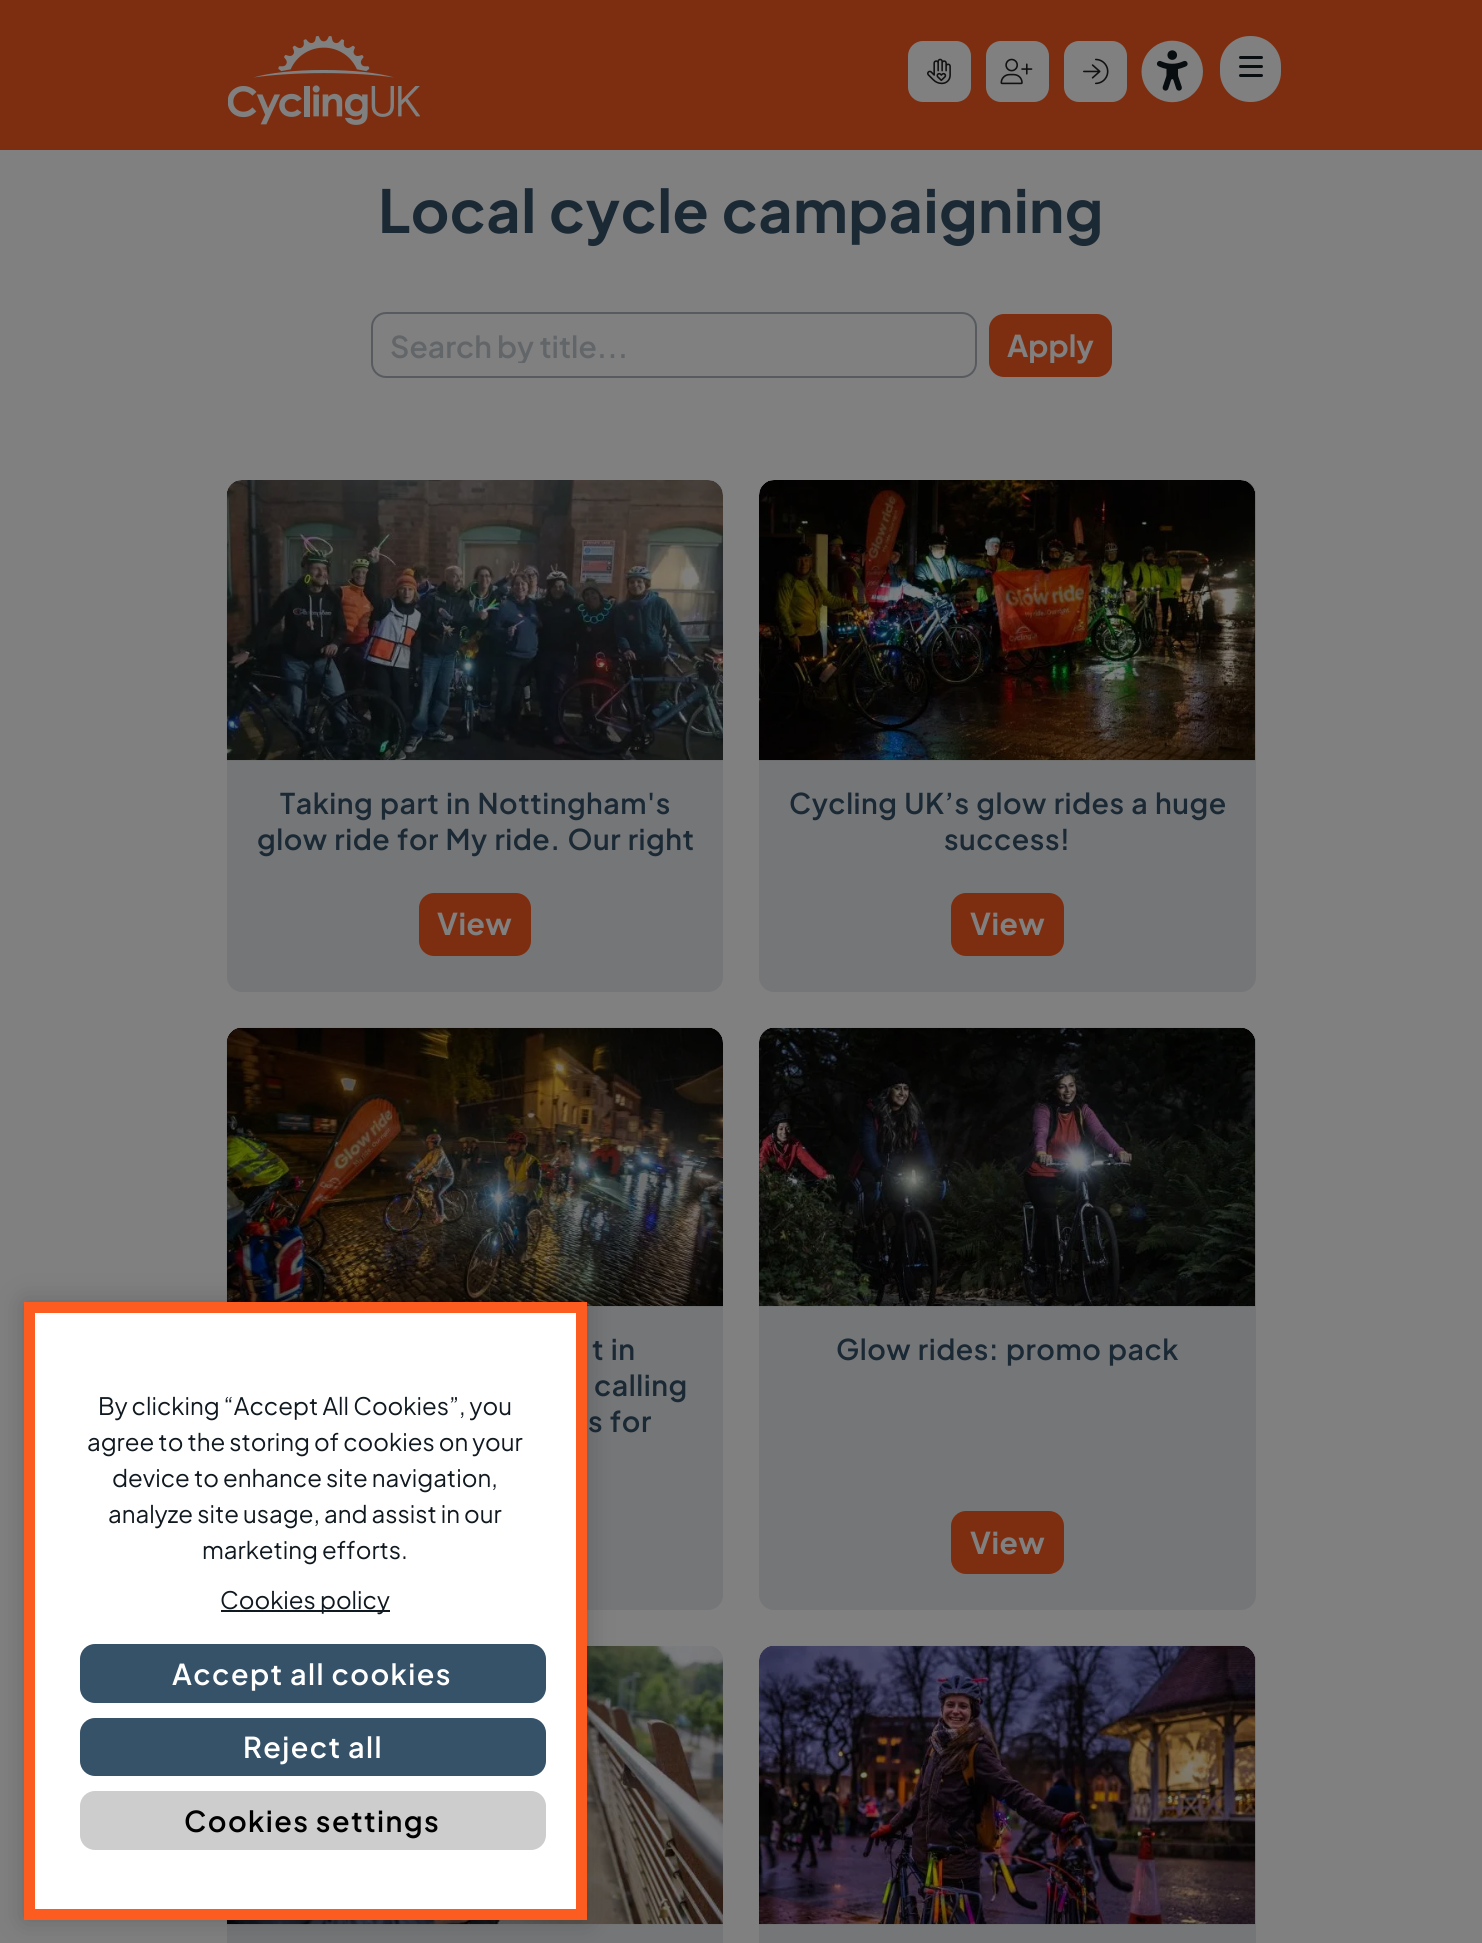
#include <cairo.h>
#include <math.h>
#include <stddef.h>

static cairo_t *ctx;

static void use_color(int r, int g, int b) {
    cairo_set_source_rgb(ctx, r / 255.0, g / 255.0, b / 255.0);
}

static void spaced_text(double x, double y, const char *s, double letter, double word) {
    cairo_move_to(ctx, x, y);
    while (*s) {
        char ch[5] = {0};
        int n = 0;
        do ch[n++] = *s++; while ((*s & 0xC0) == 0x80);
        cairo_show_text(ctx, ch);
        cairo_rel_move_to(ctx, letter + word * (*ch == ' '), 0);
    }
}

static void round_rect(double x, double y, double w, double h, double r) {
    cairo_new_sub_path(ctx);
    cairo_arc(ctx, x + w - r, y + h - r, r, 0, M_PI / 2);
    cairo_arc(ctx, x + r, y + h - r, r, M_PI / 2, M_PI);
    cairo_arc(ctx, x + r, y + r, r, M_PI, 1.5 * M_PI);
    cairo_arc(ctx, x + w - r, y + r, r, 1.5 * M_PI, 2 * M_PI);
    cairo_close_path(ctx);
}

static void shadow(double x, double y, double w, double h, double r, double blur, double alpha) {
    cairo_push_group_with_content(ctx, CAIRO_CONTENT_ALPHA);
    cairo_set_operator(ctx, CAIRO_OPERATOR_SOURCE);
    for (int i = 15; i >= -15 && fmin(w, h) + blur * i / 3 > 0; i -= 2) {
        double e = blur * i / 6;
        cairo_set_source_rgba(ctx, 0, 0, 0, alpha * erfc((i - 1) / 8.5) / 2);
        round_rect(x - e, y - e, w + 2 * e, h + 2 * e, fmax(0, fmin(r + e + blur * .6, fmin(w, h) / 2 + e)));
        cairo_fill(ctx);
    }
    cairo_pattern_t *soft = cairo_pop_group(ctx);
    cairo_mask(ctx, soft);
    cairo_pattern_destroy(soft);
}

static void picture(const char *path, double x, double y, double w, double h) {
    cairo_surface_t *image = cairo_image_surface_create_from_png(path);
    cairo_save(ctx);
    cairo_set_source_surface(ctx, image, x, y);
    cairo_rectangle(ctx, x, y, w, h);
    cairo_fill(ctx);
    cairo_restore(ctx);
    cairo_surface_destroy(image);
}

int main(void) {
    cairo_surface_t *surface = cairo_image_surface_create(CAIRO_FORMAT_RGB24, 1482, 1943);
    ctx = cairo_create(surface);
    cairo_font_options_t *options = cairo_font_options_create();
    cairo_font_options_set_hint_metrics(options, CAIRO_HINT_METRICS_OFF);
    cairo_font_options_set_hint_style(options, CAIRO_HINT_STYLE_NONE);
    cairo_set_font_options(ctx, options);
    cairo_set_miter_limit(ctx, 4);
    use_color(128, 128, 128);
    cairo_paint(ctx);
    use_color(126, 46, 16);
    cairo_rectangle(ctx, 0, 0, 1482, 150);
    cairo_fill(ctx);
    picture("img1.png", 228, 36, 192, 89);
    use_color(128, 128, 128);
    round_rect(908, 41, 63, 61, 15);
    cairo_fill(ctx);
    picture("img2.png", 927, 58, 24, 27);
    round_rect(986, 41, 63, 61, 15);
    cairo_fill(ctx);
    picture("img3.png", 1000, 58, 33, 27);
    round_rect(1064, 41, 63, 61, 15);
    cairo_fill(ctx);
    picture("img4.png", 1083, 58, 26, 27);
    use_color(8, 13, 16);
    cairo_new_path(ctx);
    cairo_move_to(ctx, 1170, 94);
    cairo_curve_to(ctx, 1202, 94, 1201, 46, 1170, 46);
    cairo_curve_to(ctx, 1139, 46, 1138, 94, 1170, 94);
    cairo_close_path(ctx);
    cairo_fill(ctx);
    picture("img5.png", 1141, 40, 62, 63);
    use_color(128, 128, 128);
    round_rect(1220, 36, 61, 66, 30);
    cairo_fill(ctx);
    use_color(8, 13, 16);
    round_rect(1239, 56, 24, 3, 1.5);
    cairo_fill(ctx);
    round_rect(1239, 65, 24, 3, 1.5);
    cairo_fill(ctx);
    round_rect(1239, 74, 24, 3, 1.5);
    cairo_fill(ctx);
    cairo_select_font_face(ctx, "Plus Jakarta Sans", CAIRO_FONT_SLANT_NORMAL, CAIRO_FONT_WEIGHT_BOLD);
    cairo_set_font_size(ctx, 59.25);
    use_color(27, 41, 53);
    spaced_text(378, 233, "Local cycle campaigning", 0.5, 1.25);
    round_rect(372, 313, 604, 64, 14);
    use_color(87, 91, 95);
    cairo_stroke(ctx);
    cairo_save(ctx);
    cairo_rectangle(ctx, 390, 326, 567, 37);
    cairo_clip(ctx);
    cairo_select_font_face(ctx, "Plus Jakarta Sans SemiBold", CAIRO_FONT_SLANT_NORMAL, CAIRO_FONT_WEIGHT_NORMAL);
    cairo_set_font_size(ctx, 30);
    use_color(98, 102, 105);
    cairo_move_to(ctx, 390, 358);
    cairo_show_text(ctx, "Search by title...");
    cairo_restore(ctx);
    use_color(126, 46, 16);
    round_rect(989, 314, 123, 63, 15);
    cairo_fill(ctx);
    cairo_set_font_size(ctx, 30);
    use_color(128, 128, 128);
    cairo_move_to(ctx, 1007, 357);
    cairo_show_text(ctx, "Apply");
    use_color(117, 118, 120);
    round_rect(227, 480, 496, 512, 15);
    cairo_fill(ctx);
    cairo_new_path(ctx);
    cairo_move_to(ctx, 242, 480);
    cairo_line_to(ctx, 708, 480);
    cairo_curve_to(ctx, 716.5, 480, 723, 486.5, 723, 495);
    cairo_line_to(ctx, 723, 761);
    cairo_line_to(ctx, 227, 761);
    cairo_line_to(ctx, 227, 495);
    cairo_curve_to(ctx, 227, 486.5, 233.5, 480, 242, 480);
    cairo_close_path(ctx);
    cairo_fill(ctx);
    picture("img6.png", 226, 480, 497, 281);
    cairo_select_font_face(ctx, "Plus Jakarta Sans SemiBold", CAIRO_FONT_SLANT_NORMAL, CAIRO_FONT_WEIGHT_NORMAL);
    cairo_set_font_size(ctx, 28.5);
    use_color(27, 41, 53);
    spaced_text(280, 814, "Taking part in Nottingham's", 0.5, 1.25);
    spaced_text(257, 850, "glow ride for My ride. Our right", 0.5, 1.25);
    use_color(126, 46, 16);
    round_rect(419, 893, 112, 63, 15);
    cairo_fill(ctx);
    cairo_select_font_face(ctx, "Plus Jakarta Sans", CAIRO_FONT_SLANT_NORMAL, CAIRO_FONT_WEIGHT_BOLD);
    cairo_set_font_size(ctx, 30);
    use_color(128, 128, 128);
    spaced_text(437, 935, "View", 0.5, 0);
    use_color(117, 118, 120);
    round_rect(759, 480, 497, 512, 15);
    cairo_fill(ctx);
    cairo_new_path(ctx);
    cairo_move_to(ctx, 774, 480);
    cairo_line_to(ctx, 1241, 480);
    cairo_curve_to(ctx, 1249.5, 480, 1256, 486.5, 1256, 495);
    cairo_line_to(ctx, 1256, 761);
    cairo_line_to(ctx, 759, 761);
    cairo_line_to(ctx, 759, 495);
    cairo_curve_to(ctx, 759, 486.5, 765.5, 480, 774, 480);
    cairo_close_path(ctx);
    cairo_fill(ctx);
    picture("img7.png", 759, 480, 497, 281);
    cairo_select_font_face(ctx, "Plus Jakarta Sans SemiBold", CAIRO_FONT_SLANT_NORMAL, CAIRO_FONT_WEIGHT_NORMAL);
    cairo_set_font_size(ctx, 28.5);
    use_color(27, 41, 53);
    spaced_text(789, 814, "Cycling UK’s glow rides a huge", 0.5, 1.25);
    spaced_text(944, 850, "success!", 0.5, 0);
    use_color(126, 46, 16);
    round_rect(951, 893, 113, 63, 15);
    cairo_fill(ctx);
    cairo_select_font_face(ctx, "Plus Jakarta Sans", CAIRO_FONT_SLANT_NORMAL, CAIRO_FONT_WEIGHT_BOLD);
    cairo_set_font_size(ctx, 30);
    use_color(128, 128, 128);
    spaced_text(970, 935, "View", 0.5, 0);
    use_color(117, 118, 120);
    round_rect(227, 1028, 496, 582, 15);
    cairo_fill(ctx);
    cairo_new_path(ctx);
    cairo_move_to(ctx, 242, 1028);
    cairo_line_to(ctx, 708, 1028);
    cairo_curve_to(ctx, 716.5, 1028, 723, 1034.5, 723, 1043);
    cairo_line_to(ctx, 723, 1307);
    cairo_line_to(ctx, 227, 1307);
    cairo_line_to(ctx, 227, 1043);
    cairo_curve_to(ctx, 227, 1034.5, 233.5, 1028, 242, 1028);
    cairo_close_path(ctx);
    cairo_fill(ctx);
    picture("img8.png", 226, 1027, 497, 280);
    cairo_select_font_face(ctx, "Plus Jakarta Sans SemiBold", CAIRO_FONT_SLANT_NORMAL, CAIRO_FONT_WEIGHT_NORMAL);
    cairo_set_font_size(ctx, 28.5);
    use_color(27, 41, 53);
    spaced_text(592, 1360, "t in", 0.5, 1.25);
    spaced_text(594, 1396, "calling", 0.5, 1.25);
    spaced_text(588, 1432, "s for", 0.5, 1.25);
    use_color(117, 118, 120);
    round_rect(759, 1028, 497, 582, 15);
    cairo_fill(ctx);
    cairo_new_path(ctx);
    cairo_move_to(ctx, 774, 1028);
    cairo_line_to(ctx, 1241, 1028);
    cairo_curve_to(ctx, 1249.5, 1028, 1256, 1034.5, 1256, 1043);
    cairo_line_to(ctx, 1256, 1307);
    cairo_line_to(ctx, 759, 1307);
    cairo_line_to(ctx, 759, 1043);
    cairo_curve_to(ctx, 759, 1034.5, 765.5, 1028, 774, 1028);
    cairo_close_path(ctx);
    cairo_fill(ctx);
    picture("img9.png", 759, 1027, 497, 280);
    use_color(27, 41, 53);
    spaced_text(836, 1360, "Glow rides: promo pack", 0.5, 1.25);
    use_color(126, 46, 16);
    round_rect(951, 1511, 113, 63, 15);
    cairo_fill(ctx);
    cairo_select_font_face(ctx, "Plus Jakarta Sans", CAIRO_FONT_SLANT_NORMAL, CAIRO_FONT_WEIGHT_BOLD);
    cairo_set_font_size(ctx, 30);
    use_color(128, 128, 128);
    spaced_text(970, 1554, "View", 0.5, 0);
    use_color(117, 118, 120);
    round_rect(227, 1646, 496, 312, 15);
    cairo_fill(ctx);
    cairo_new_path(ctx);
    cairo_move_to(ctx, 242, 1646);
    cairo_line_to(ctx, 708, 1646);
    cairo_curve_to(ctx, 716.5, 1646, 723, 1652.5, 723, 1661);
    cairo_line_to(ctx, 723, 1925);
    cairo_line_to(ctx, 227, 1925);
    cairo_line_to(ctx, 227, 1661);
    cairo_curve_to(ctx, 227, 1652.5, 233.5, 1646, 242, 1646);
    cairo_close_path(ctx);
    cairo_fill(ctx);
    picture("img10.png", 226, 1645, 497, 280);
    round_rect(759, 1646, 497, 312, 15);
    cairo_fill(ctx);
    cairo_new_path(ctx);
    cairo_move_to(ctx, 774, 1646);
    cairo_line_to(ctx, 1241, 1646);
    cairo_curve_to(ctx, 1249.5, 1646, 1256, 1652.5, 1256, 1661);
    cairo_line_to(ctx, 1256, 1925);
    cairo_line_to(ctx, 759, 1925);
    cairo_line_to(ctx, 759, 1661);
    cairo_curve_to(ctx, 759, 1652.5, 765.5, 1646, 774, 1646);
    cairo_close_path(ctx);
    cairo_fill(ctx);
    picture("img11.png", 759, 1645, 497, 280);
    use_color(0, 0, 0);
    shadow(24, 1302, 563, 618, 0, 13.5, 0.2);
    use_color(255, 255, 255);
    cairo_rectangle(ctx, 29.5, 1307.5, 552, 607);
    cairo_fill_preserve(ctx);
    use_color(252, 92, 31);
    cairo_set_line_width(ctx, 11);
    cairo_stroke(ctx);
    cairo_select_font_face(ctx, "Plus Jakarta Sans", CAIRO_FONT_SLANT_NORMAL, CAIRO_FONT_WEIGHT_NORMAL);
    cairo_set_font_size(ctx, 24);
    use_color(16, 25, 32);
    cairo_move_to(ctx, 98, 1415);
    cairo_show_text(ctx, "By clicking “Accept All Cookies”, you");
    cairo_move_to(ctx, 87, 1451);
    cairo_show_text(ctx, "agree to the storing of cookies on your");
    cairo_move_to(ctx, 112, 1487);
    cairo_show_text(ctx, "device to enhance site navigation,");
    cairo_move_to(ctx, 108, 1523);
    cairo_show_text(ctx, "analyze site usage, and assist in our");
    cairo_move_to(ctx, 202, 1559);
    cairo_show_text(ctx, "marketing efforts.");
    cairo_rectangle(ctx, 221, 1610, 169, 2);
    cairo_fill(ctx);
    cairo_move_to(ctx, 220, 1609);
    cairo_show_text(ctx, "Cookies policy");
    use_color(54, 82, 105);
    round_rect(80, 1644, 466, 59, 15);
    cairo_fill(ctx);
    cairo_select_font_face(ctx, "Plus Jakarta Sans SemiBold", CAIRO_FONT_SLANT_NORMAL, CAIRO_FONT_WEIGHT_NORMAL);
    cairo_set_font_size(ctx, 28.75);
    use_color(255, 255, 255);
    spaced_text(172, 1685, "Accept all cookies", 1.4, 0);
    use_color(54, 82, 105);
    round_rect(80, 1718, 466, 58, 15);
    cairo_fill(ctx);
    use_color(255, 255, 255);
    spaced_text(243, 1758, "Reject all", 1.4, 0);
    use_color(205, 205, 206);
    round_rect(80, 1791, 466, 59, 15);
    cairo_fill(ctx);
    use_color(0, 0, 0);
    spaced_text(184, 1832, "Cookies settings", 1.4, 0);
    cairo_surface_write_to_png(surface, "result.png");
    cairo_font_options_destroy(options);
    cairo_destroy(ctx);
    cairo_surface_destroy(surface);
    return 0;
}
